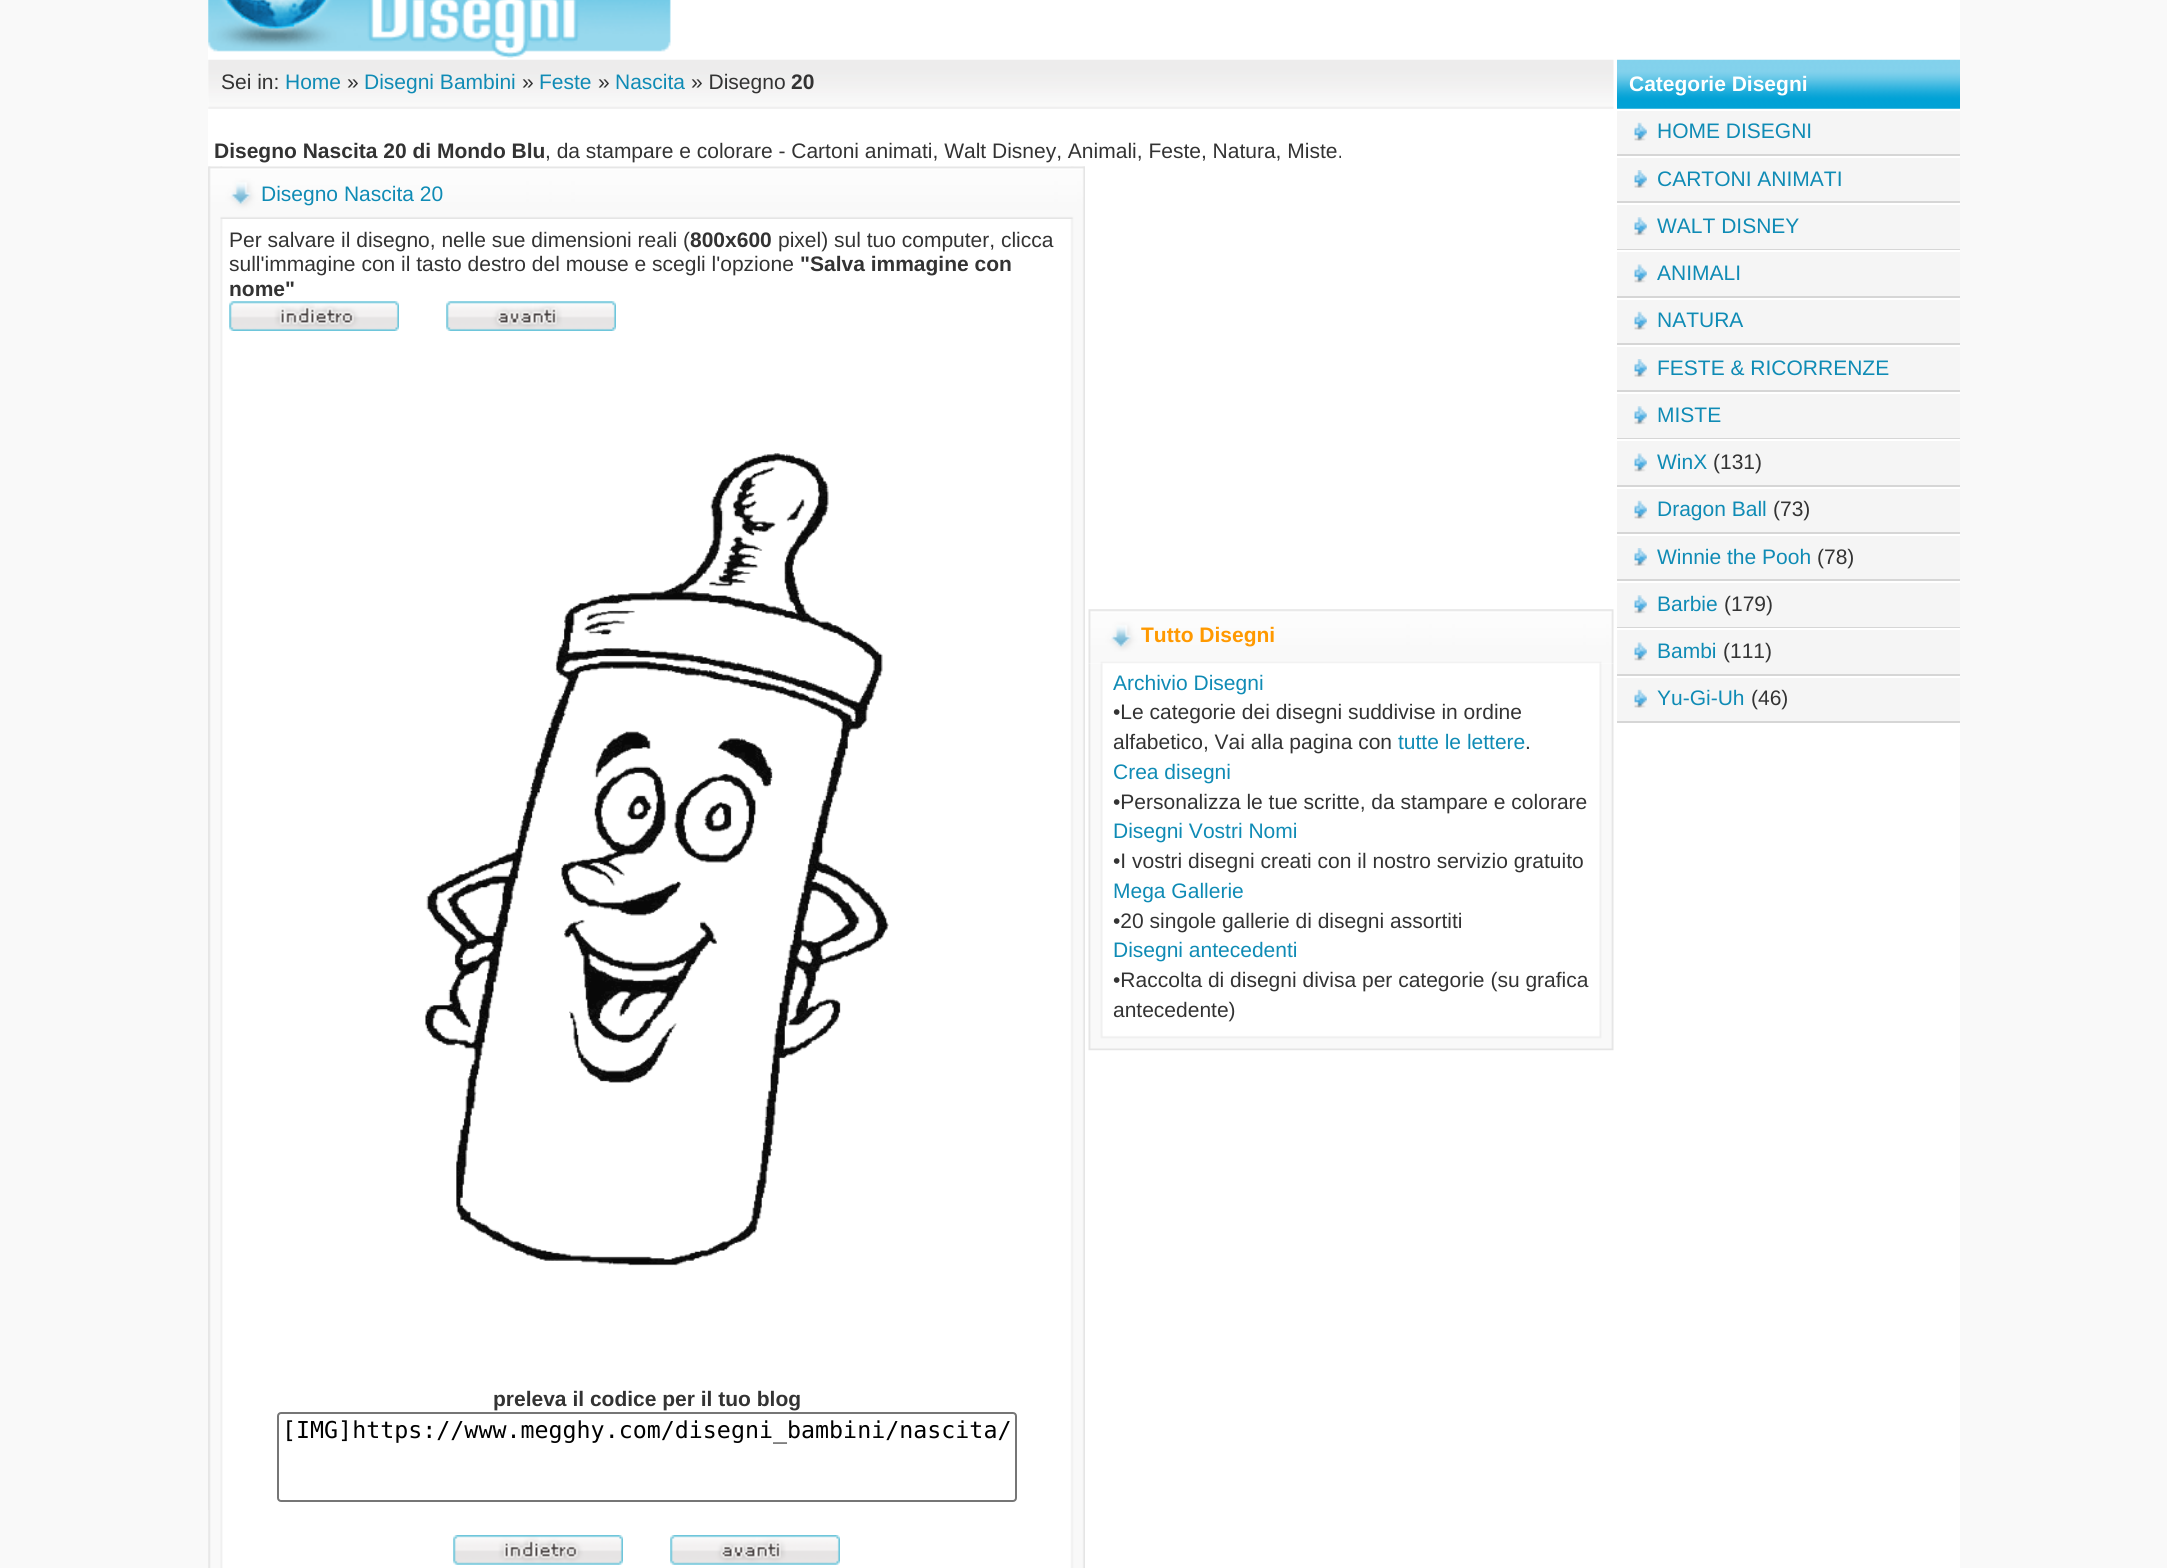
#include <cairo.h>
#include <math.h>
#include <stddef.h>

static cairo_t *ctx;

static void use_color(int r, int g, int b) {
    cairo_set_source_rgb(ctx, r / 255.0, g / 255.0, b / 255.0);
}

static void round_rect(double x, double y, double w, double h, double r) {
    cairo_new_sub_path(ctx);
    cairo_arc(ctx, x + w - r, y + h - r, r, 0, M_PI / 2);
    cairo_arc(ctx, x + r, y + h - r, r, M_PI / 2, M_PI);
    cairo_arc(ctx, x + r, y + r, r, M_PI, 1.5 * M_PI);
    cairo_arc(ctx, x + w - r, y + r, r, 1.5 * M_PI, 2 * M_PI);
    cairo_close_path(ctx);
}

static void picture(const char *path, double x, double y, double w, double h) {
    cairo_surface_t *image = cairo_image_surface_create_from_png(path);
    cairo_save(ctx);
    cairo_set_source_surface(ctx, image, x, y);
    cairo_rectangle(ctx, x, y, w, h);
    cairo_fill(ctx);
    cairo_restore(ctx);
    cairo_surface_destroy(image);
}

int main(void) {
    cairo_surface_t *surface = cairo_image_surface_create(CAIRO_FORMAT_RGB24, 2167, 1568);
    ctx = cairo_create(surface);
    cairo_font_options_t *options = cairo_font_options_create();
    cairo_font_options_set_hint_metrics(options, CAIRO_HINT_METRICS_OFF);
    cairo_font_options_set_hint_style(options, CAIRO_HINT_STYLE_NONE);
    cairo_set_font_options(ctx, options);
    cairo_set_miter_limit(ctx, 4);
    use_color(249, 249, 249);
    cairo_paint(ctx);
    use_color(255, 255, 255);
    cairo_rectangle(ctx, 208, 0, 1752, 1568);
    cairo_fill(ctx);
    picture("img1.png", 208, 0, 463, 58);
    picture("img2.png", 208, 59, 1406, 50);
    cairo_select_font_face(ctx, "Liberation Sans", CAIRO_FONT_SLANT_NORMAL, CAIRO_FONT_WEIGHT_NORMAL);
    cairo_set_font_size(ctx, 21);
    use_color(51, 51, 51);
    cairo_move_to(ctx, 221, 89);
    cairo_show_text(ctx, "Sei in:");
    use_color(15, 139, 181);
    cairo_move_to(ctx, 285, 89);
    cairo_show_text(ctx, "Home");
    use_color(51, 51, 51);
    cairo_move_to(ctx, 347, 89);
    cairo_show_text(ctx, "»");
    use_color(15, 139, 181);
    cairo_move_to(ctx, 364, 89);
    cairo_show_text(ctx, "Disegni Bambini");
    use_color(51, 51, 51);
    cairo_move_to(ctx, 522, 89);
    cairo_show_text(ctx, "»");
    use_color(15, 139, 181);
    cairo_move_to(ctx, 539, 89);
    cairo_show_text(ctx, "Feste");
    use_color(51, 51, 51);
    cairo_move_to(ctx, 598, 89);
    cairo_show_text(ctx, "»");
    use_color(15, 139, 181);
    cairo_move_to(ctx, 615, 89);
    cairo_show_text(ctx, "Nascita");
    use_color(51, 51, 51);
    cairo_move_to(ctx, 691, 89);
    cairo_show_text(ctx, "» Disegno");
    cairo_select_font_face(ctx, "Liberation Sans", CAIRO_FONT_SLANT_NORMAL, CAIRO_FONT_WEIGHT_BOLD);
    cairo_move_to(ctx, 791, 89);
    cairo_show_text(ctx, "20");
    cairo_move_to(ctx, 214, 158);
    cairo_show_text(ctx, "Disegno Nascita 20 di Mondo Blu");
    cairo_select_font_face(ctx, "Liberation Sans", CAIRO_FONT_SLANT_NORMAL, CAIRO_FONT_WEIGHT_NORMAL);
    cairo_move_to(ctx, 545, 158);
    cairo_show_text(ctx, ", da stampare e colorare - Cartoni animati, Walt Disney, Animali, Feste, Natura, Miste.");
    picture("img3.png", 208, 166, 877, 1402);
    picture("img4.png", 208, 166, 877, 53);
    use_color(15, 139, 181);
    cairo_move_to(ctx, 261, 201);
    cairo_show_text(ctx, "Disegno Nascita 20");
    use_color(230, 230, 230);
    cairo_rectangle(ctx, 208, 219, 1, 1291);
    cairo_fill(ctx);
    use_color(51, 51, 51);
    cairo_move_to(ctx, 229, 247);
    cairo_show_text(ctx, "Per salvare il disegno, nelle sue dimensioni reali (");
    cairo_select_font_face(ctx, "Liberation Sans", CAIRO_FONT_SLANT_NORMAL, CAIRO_FONT_WEIGHT_BOLD);
    cairo_move_to(ctx, 690, 247);
    cairo_show_text(ctx, "800x600");
    cairo_select_font_face(ctx, "Liberation Sans", CAIRO_FONT_SLANT_NORMAL, CAIRO_FONT_WEIGHT_NORMAL);
    cairo_move_to(ctx, 778, 247);
    cairo_show_text(ctx, "pixel) sul tuo computer, clicca");
    cairo_move_to(ctx, 229, 271);
    cairo_show_text(ctx, "sull'immagine con il tasto destro del mouse e scegli l'opzione");
    cairo_select_font_face(ctx, "Liberation Sans", CAIRO_FONT_SLANT_NORMAL, CAIRO_FONT_WEIGHT_BOLD);
    cairo_move_to(ctx, 800, 271);
    cairo_show_text(ctx, "\"Salva immagine con");
    cairo_move_to(ctx, 229, 296);
    cairo_show_text(ctx, "nome\"");
    picture("img5.png", 229, 301, 170, 30);
    picture("img6.png", 446, 301, 170, 30);
    picture("img7.png", 424, 453, 465, 813);
    cairo_move_to(ctx, 493, 1406);
    cairo_show_text(ctx, "preleva il codice per il tuo blog");
    round_rect(278, 1413, 738, 88, 3);
    use_color(118, 118, 118);
    cairo_stroke(ctx);
    cairo_select_font_face(ctx, "DejaVu Sans Mono", CAIRO_FONT_SLANT_NORMAL, CAIRO_FONT_WEIGHT_NORMAL);
    cairo_set_font_size(ctx, 23.3);
    use_color(0, 0, 0);
    cairo_move_to(ctx, 282, 1438);
    cairo_show_text(ctx, "[IMG]https://www.megghy.com/disegni_bambini/nascita/");
    picture("img8.png", 453, 1535, 170, 30);
    picture("img9.png", 670, 1535, 170, 30);
    picture("img10.png", 1088, 609, 526, 55);
    cairo_select_font_face(ctx, "Liberation Sans", CAIRO_FONT_SLANT_NORMAL, CAIRO_FONT_WEIGHT_BOLD);
    cairo_set_font_size(ctx, 21);
    use_color(255, 153, 0);
    cairo_move_to(ctx, 1141, 642);
    cairo_show_text(ctx, "Tutto Disegni");
    picture("img11.png", 1088, 663, 526, 368);
    cairo_select_font_face(ctx, "Liberation Sans", CAIRO_FONT_SLANT_NORMAL, CAIRO_FONT_WEIGHT_NORMAL);
    use_color(15, 139, 181);
    cairo_move_to(ctx, 1113, 690);
    cairo_show_text(ctx, "Archivio Disegni");
    use_color(51, 51, 51);
    cairo_move_to(ctx, 1113, 719);
    cairo_show_text(ctx, "•Le categorie dei disegni suddivise in ordine");
    cairo_move_to(ctx, 1113, 749);
    cairo_show_text(ctx, "alfabetico, Vai alla pagina con");
    use_color(15, 139, 181);
    cairo_move_to(ctx, 1398, 749);
    cairo_show_text(ctx, "tutte le lettere");
    use_color(51, 51, 51);
    cairo_move_to(ctx, 1525, 749);
    cairo_show_text(ctx, ".");
    use_color(15, 139, 181);
    cairo_move_to(ctx, 1113, 779);
    cairo_show_text(ctx, "Crea disegni");
    use_color(51, 51, 51);
    cairo_move_to(ctx, 1113, 809);
    cairo_show_text(ctx, "•Personalizza le tue scritte, da stampare e colorare");
    use_color(15, 139, 181);
    cairo_move_to(ctx, 1113, 838);
    cairo_show_text(ctx, "Disegni Vostri Nomi");
    use_color(51, 51, 51);
    cairo_move_to(ctx, 1113, 868);
    cairo_show_text(ctx, "•I vostri disegni creati con il nostro servizio gratuito");
    use_color(15, 139, 181);
    cairo_move_to(ctx, 1113, 898);
    cairo_show_text(ctx, "Mega Gallerie");
    use_color(51, 51, 51);
    cairo_move_to(ctx, 1113, 928);
    cairo_show_text(ctx, "•20 singole gallerie di disegni assortiti");
    use_color(15, 139, 181);
    cairo_move_to(ctx, 1113, 957);
    cairo_show_text(ctx, "Disegni antecedenti");
    use_color(51, 51, 51);
    cairo_move_to(ctx, 1113, 987);
    cairo_show_text(ctx, "•Raccolta di disegni divisa per categorie (su grafica");
    cairo_move_to(ctx, 1113, 1017);
    cairo_show_text(ctx, "antecedente)");
    picture("img12.png", 1088, 1031, 526, 20);
    picture("img13.png", 1617, 59, 343, 50);
    cairo_select_font_face(ctx, "Liberation Sans", CAIRO_FONT_SLANT_NORMAL, CAIRO_FONT_WEIGHT_BOLD);
    use_color(255, 255, 255);
    cairo_move_to(ctx, 1629, 91);
    cairo_show_text(ctx, "Categorie Disegni");
    use_color(245, 245, 245);
    cairo_rectangle(ctx, 1617, 111, 343, 610);
    cairo_fill(ctx);
    picture("img14.png", 1634, 122, 13, 19);
    use_color(214, 214, 214);
    cairo_rectangle(ctx, 1617, 154, 343, 2);
    cairo_fill(ctx);
    cairo_select_font_face(ctx, "Liberation Sans", CAIRO_FONT_SLANT_NORMAL, CAIRO_FONT_WEIGHT_NORMAL);
    use_color(15, 139, 181);
    cairo_move_to(ctx, 1657, 138);
    cairo_show_text(ctx, "HOME DISEGNI");
    picture("img15.png", 1634, 170, 13, 18);
    use_color(255, 255, 255);
    cairo_rectangle(ctx, 1617, 156, 343, 2);
    cairo_fill(ctx);
    use_color(214, 214, 214);
    cairo_rectangle(ctx, 1617, 201, 343, 2);
    cairo_fill(ctx);
    use_color(15, 139, 181);
    cairo_move_to(ctx, 1657, 186);
    cairo_show_text(ctx, "CARTONI ANIMATI");
    picture("img16.png", 1634, 217, 13, 19);
    use_color(255, 255, 255);
    cairo_rectangle(ctx, 1617, 203, 343, 2);
    cairo_fill(ctx);
    use_color(214, 214, 214);
    cairo_rectangle(ctx, 1617, 249, 343, 1);
    cairo_fill(ctx);
    use_color(15, 139, 181);
    cairo_move_to(ctx, 1657, 233);
    cairo_show_text(ctx, "WALT DISNEY");
    picture("img17.png", 1634, 264, 13, 19);
    use_color(255, 255, 255);
    cairo_rectangle(ctx, 1617, 250, 343, 2);
    cairo_fill(ctx);
    use_color(214, 214, 214);
    cairo_rectangle(ctx, 1617, 296, 343, 2);
    cairo_fill(ctx);
    use_color(15, 139, 181);
    cairo_move_to(ctx, 1657, 280);
    cairo_show_text(ctx, "ANIMALI");
    picture("img14.png", 1634, 311, 13, 19);
    use_color(255, 255, 255);
    cairo_rectangle(ctx, 1617, 298, 343, 2);
    cairo_fill(ctx);
    use_color(214, 214, 214);
    cairo_rectangle(ctx, 1617, 343, 343, 2);
    cairo_fill(ctx);
    use_color(15, 139, 181);
    cairo_move_to(ctx, 1657, 327);
    cairo_show_text(ctx, "NATURA");
    picture("img15.png", 1634, 359, 13, 18);
    use_color(255, 255, 255);
    cairo_rectangle(ctx, 1617, 345, 343, 2);
    cairo_fill(ctx);
    use_color(214, 214, 214);
    cairo_rectangle(ctx, 1617, 390, 343, 2);
    cairo_fill(ctx);
    use_color(15, 139, 181);
    cairo_move_to(ctx, 1657, 375);
    cairo_show_text(ctx, "FESTE & RICORRENZE");
    picture("img16.png", 1634, 406, 13, 19);
    use_color(255, 255, 255);
    cairo_rectangle(ctx, 1617, 392, 343, 2);
    cairo_fill(ctx);
    use_color(214, 214, 214);
    cairo_rectangle(ctx, 1617, 438, 343, 1);
    cairo_fill(ctx);
    use_color(15, 139, 181);
    cairo_move_to(ctx, 1657, 422);
    cairo_show_text(ctx, "MISTE");
    picture("img17.png", 1634, 453, 13, 19);
    use_color(255, 255, 255);
    cairo_rectangle(ctx, 1617, 439, 343, 2);
    cairo_fill(ctx);
    use_color(214, 214, 214);
    cairo_rectangle(ctx, 1617, 485, 343, 2);
    cairo_fill(ctx);
    use_color(15, 139, 181);
    cairo_move_to(ctx, 1657, 469);
    cairo_show_text(ctx, "WinX");
    use_color(51, 51, 51);
    cairo_move_to(ctx, 1713, 469);
    cairo_show_text(ctx, "(131)");
    picture("img14.png", 1634, 500, 13, 19);
    use_color(255, 255, 255);
    cairo_rectangle(ctx, 1617, 487, 343, 2);
    cairo_fill(ctx);
    use_color(214, 214, 214);
    cairo_rectangle(ctx, 1617, 532, 343, 2);
    cairo_fill(ctx);
    use_color(15, 139, 181);
    cairo_move_to(ctx, 1657, 516);
    cairo_show_text(ctx, "Dragon Ball");
    use_color(51, 51, 51);
    cairo_move_to(ctx, 1773, 516);
    cairo_show_text(ctx, "(73)");
    picture("img15.png", 1634, 548, 13, 18);
    use_color(255, 255, 255);
    cairo_rectangle(ctx, 1617, 534, 343, 2);
    cairo_fill(ctx);
    use_color(214, 214, 214);
    cairo_rectangle(ctx, 1617, 579, 343, 2);
    cairo_fill(ctx);
    use_color(15, 139, 181);
    cairo_move_to(ctx, 1657, 564);
    cairo_show_text(ctx, "Winnie the Pooh");
    use_color(51, 51, 51);
    cairo_move_to(ctx, 1817, 564);
    cairo_show_text(ctx, "(78)");
    picture("img16.png", 1634, 595, 13, 19);
    use_color(255, 255, 255);
    cairo_rectangle(ctx, 1617, 581, 343, 2);
    cairo_fill(ctx);
    use_color(214, 214, 214);
    cairo_rectangle(ctx, 1617, 627, 343, 1);
    cairo_fill(ctx);
    use_color(15, 139, 181);
    cairo_move_to(ctx, 1657, 611);
    cairo_show_text(ctx, "Barbie");
    use_color(51, 51, 51);
    cairo_move_to(ctx, 1724, 611);
    cairo_show_text(ctx, "(179)");
    picture("img17.png", 1634, 642, 13, 19);
    use_color(255, 255, 255);
    cairo_rectangle(ctx, 1617, 628, 343, 2);
    cairo_fill(ctx);
    use_color(214, 214, 214);
    cairo_rectangle(ctx, 1617, 674, 343, 2);
    cairo_fill(ctx);
    use_color(15, 139, 181);
    cairo_move_to(ctx, 1657, 658);
    cairo_show_text(ctx, "Bambi");
    use_color(51, 51, 51);
    cairo_move_to(ctx, 1723, 658);
    cairo_show_text(ctx, "(111)");
    picture("img14.png", 1634, 689, 13, 19);
    use_color(255, 255, 255);
    cairo_rectangle(ctx, 1617, 676, 343, 2);
    cairo_fill(ctx);
    use_color(214, 214, 214);
    cairo_rectangle(ctx, 1617, 721, 343, 2);
    cairo_fill(ctx);
    use_color(15, 139, 181);
    cairo_move_to(ctx, 1657, 705);
    cairo_show_text(ctx, "Yu-Gi-Uh");
    use_color(51, 51, 51);
    cairo_move_to(ctx, 1751, 705);
    cairo_show_text(ctx, "(46)");
    cairo_surface_write_to_png(surface, "result.png");
    cairo_font_options_destroy(options);
    cairo_destroy(ctx);
    cairo_surface_destroy(surface);
    return 0;
}
